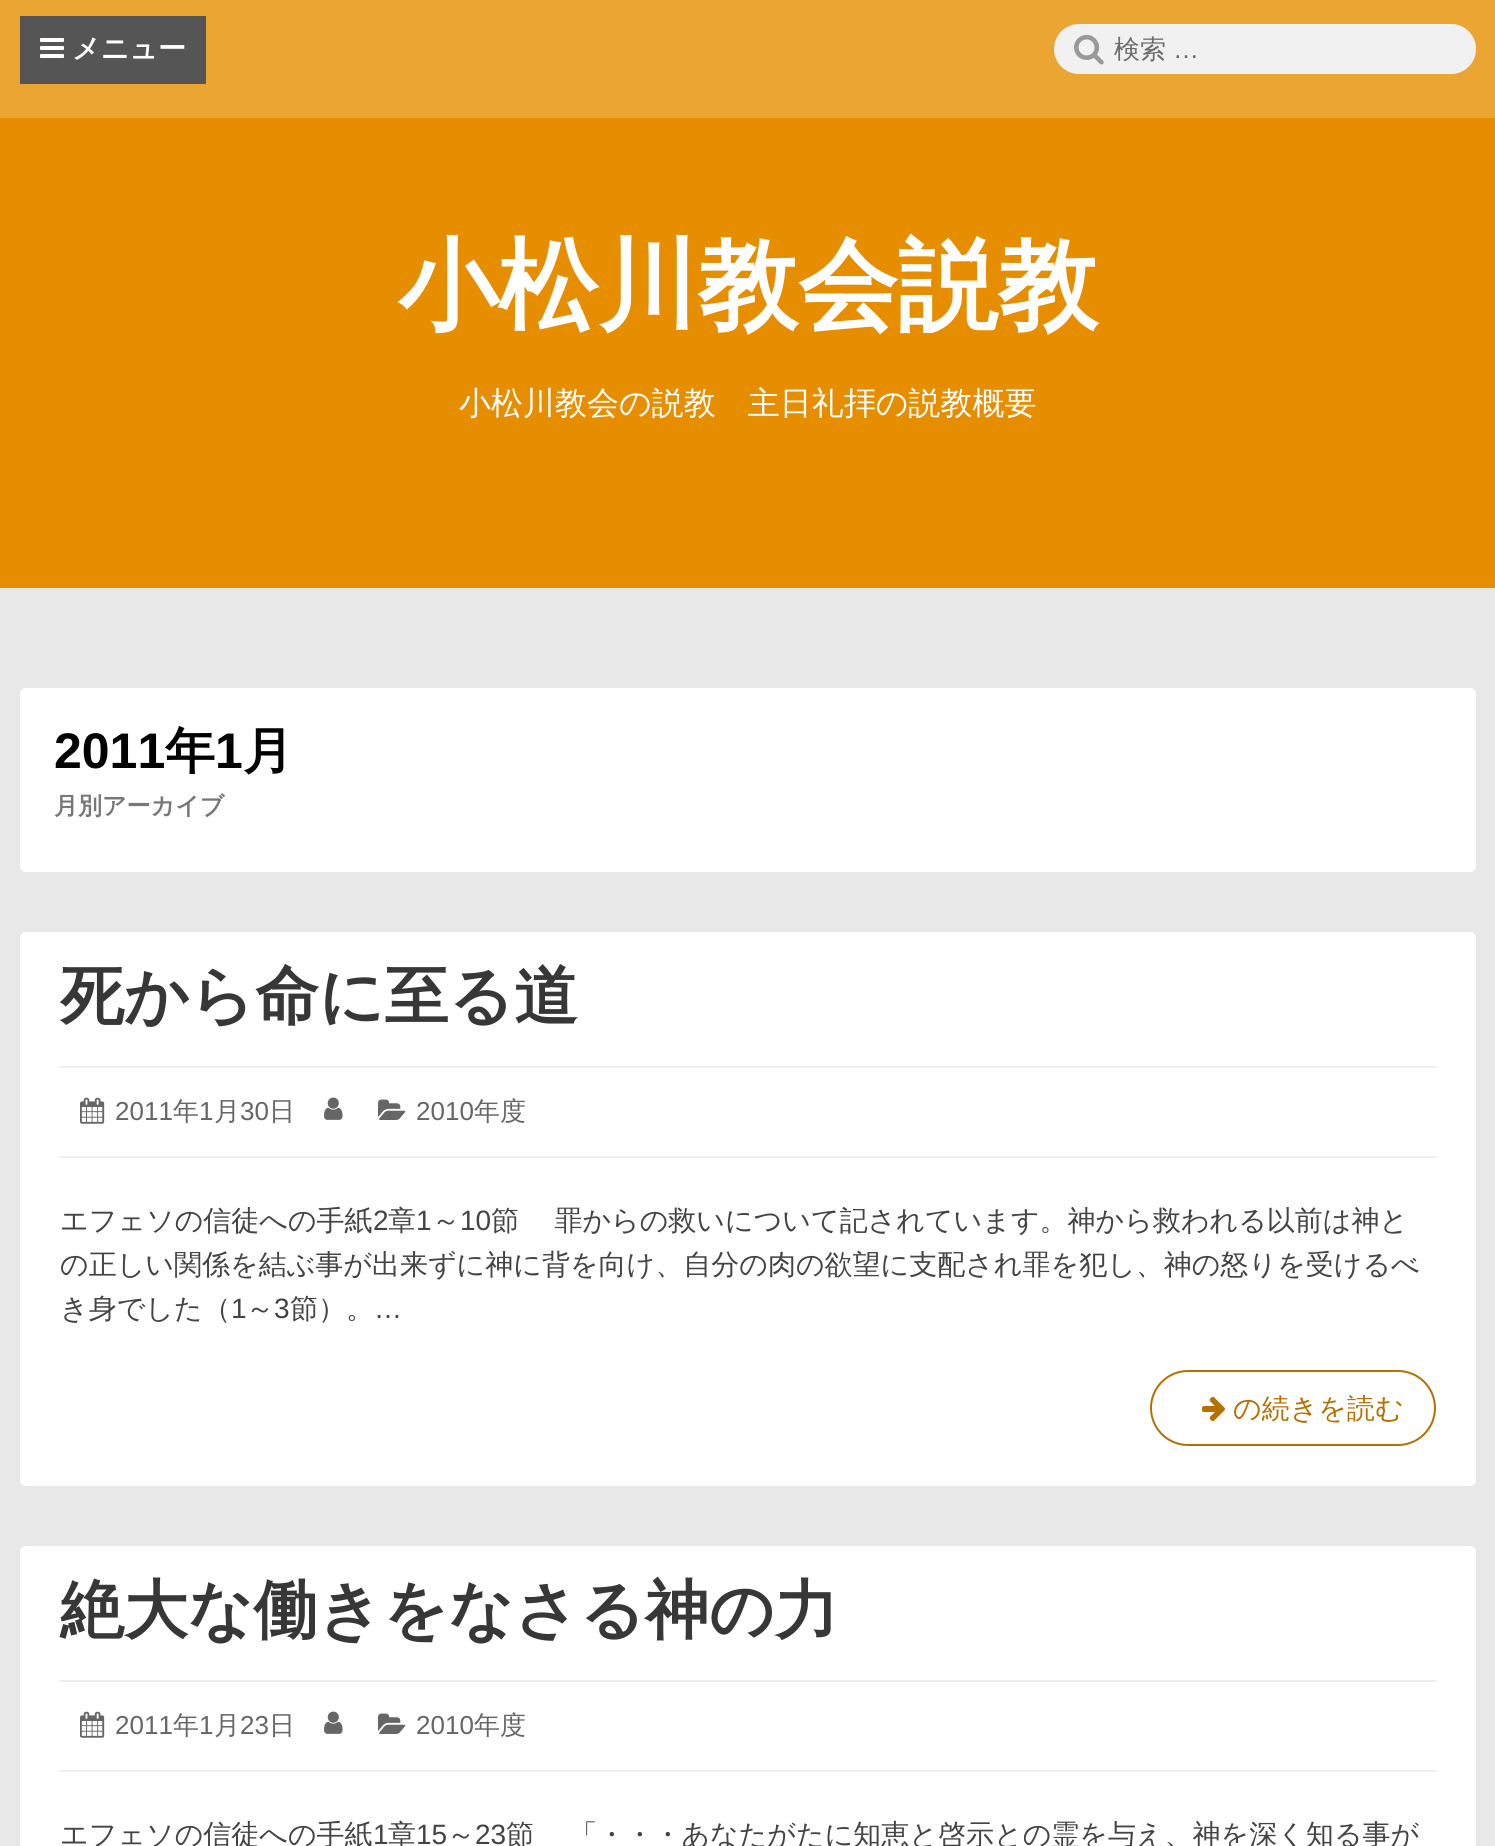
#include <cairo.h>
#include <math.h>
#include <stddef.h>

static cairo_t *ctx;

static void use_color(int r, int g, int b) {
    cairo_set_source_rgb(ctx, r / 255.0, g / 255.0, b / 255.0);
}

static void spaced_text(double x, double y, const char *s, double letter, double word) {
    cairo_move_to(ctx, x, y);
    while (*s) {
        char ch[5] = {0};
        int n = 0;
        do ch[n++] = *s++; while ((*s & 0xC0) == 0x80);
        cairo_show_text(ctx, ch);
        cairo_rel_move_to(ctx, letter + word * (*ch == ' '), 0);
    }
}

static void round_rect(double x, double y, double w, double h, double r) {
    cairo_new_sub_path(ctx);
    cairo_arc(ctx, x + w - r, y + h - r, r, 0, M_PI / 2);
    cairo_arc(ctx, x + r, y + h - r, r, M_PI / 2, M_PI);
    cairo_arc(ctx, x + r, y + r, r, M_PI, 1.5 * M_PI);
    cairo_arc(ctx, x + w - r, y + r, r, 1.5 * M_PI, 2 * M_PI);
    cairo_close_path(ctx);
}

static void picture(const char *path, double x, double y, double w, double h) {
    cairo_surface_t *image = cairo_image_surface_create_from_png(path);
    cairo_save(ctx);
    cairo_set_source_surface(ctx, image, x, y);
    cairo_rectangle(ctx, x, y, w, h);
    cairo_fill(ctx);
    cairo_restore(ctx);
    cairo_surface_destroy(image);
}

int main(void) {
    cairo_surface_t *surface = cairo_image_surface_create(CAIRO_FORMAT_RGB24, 1495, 1846);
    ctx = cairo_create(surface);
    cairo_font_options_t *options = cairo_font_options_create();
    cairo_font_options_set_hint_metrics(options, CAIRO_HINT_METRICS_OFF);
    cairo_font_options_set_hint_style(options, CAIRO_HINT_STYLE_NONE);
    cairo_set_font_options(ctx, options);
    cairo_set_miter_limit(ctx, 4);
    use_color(232, 232, 232);
    cairo_paint(ctx);
    use_color(230, 142, 0);
    cairo_rectangle(ctx, 0, 118, 1495, 470);
    cairo_fill(ctx);
    use_color(235, 165, 51);
    cairo_rectangle(ctx, 0, 0, 1495, 118);
    cairo_fill(ctx);
    use_color(85, 85, 85);
    cairo_rectangle(ctx, 20, 16, 186, 68);
    cairo_fill(ctx);
    picture("img1.png", 40, 38, 24, 20);
    cairo_select_font_face(ctx, "WenQuanYi Zen Hei", CAIRO_FONT_SLANT_NORMAL, CAIRO_FONT_WEIGHT_BOLD);
    cairo_set_font_size(ctx, 28);
    use_color(255, 255, 255);
    cairo_move_to(ctx, 72, 58);
    cairo_show_text(ctx, "メニュー");
    use_color(241, 241, 241);
    round_rect(1054, 24, 422, 50, 25);
    cairo_fill(ctx);
    picture("img2.png", 1074, 34, 30, 31);
    cairo_select_font_face(ctx, "WenQuanYi Zen Hei Medium", CAIRO_FONT_SLANT_NORMAL, CAIRO_FONT_WEIGHT_NORMAL);
    cairo_set_font_size(ctx, 26);
    use_color(108, 108, 108);
    cairo_move_to(ctx, 1114, 58);
    cairo_show_text(ctx, "検索");
    cairo_select_font_face(ctx, "Liberation Sans", CAIRO_FONT_SLANT_NORMAL, CAIRO_FONT_WEIGHT_NORMAL);
    cairo_move_to(ctx, 1173, 58);
    cairo_show_text(ctx, "…");
    cairo_select_font_face(ctx, "WenQuanYi Zen Hei", CAIRO_FONT_SLANT_NORMAL, CAIRO_FONT_WEIGHT_BOLD);
    cairo_set_font_size(ctx, 100);
    use_color(255, 255, 255);
    cairo_move_to(ctx, 398, 320);
    cairo_show_text(ctx, "小松川教会説教");
    cairo_select_font_face(ctx, "WenQuanYi Zen Hei Medium", CAIRO_FONT_SLANT_NORMAL, CAIRO_FONT_WEIGHT_NORMAL);
    cairo_set_font_size(ctx, 32);
    cairo_move_to(ctx, 459, 414);
    cairo_show_text(ctx, "小松川教会の説教　主日礼拝の説教概要");
    round_rect(20, 688, 1456, 184, 6);
    cairo_fill(ctx);
    cairo_select_font_face(ctx, "Liberation Sans", CAIRO_FONT_SLANT_NORMAL, CAIRO_FONT_WEIGHT_BOLD);
    cairo_set_font_size(ctx, 50);
    use_color(0, 0, 0);
    cairo_move_to(ctx, 54, 768);
    cairo_show_text(ctx, "2011");
    cairo_select_font_face(ctx, "WenQuanYi Zen Hei", CAIRO_FONT_SLANT_NORMAL, CAIRO_FONT_WEIGHT_BOLD);
    cairo_move_to(ctx, 165, 768);
    cairo_show_text(ctx, "年");
    cairo_select_font_face(ctx, "Liberation Sans", CAIRO_FONT_SLANT_NORMAL, CAIRO_FONT_WEIGHT_BOLD);
    cairo_move_to(ctx, 215, 768);
    cairo_show_text(ctx, "1");
    cairo_select_font_face(ctx, "WenQuanYi Zen Hei", CAIRO_FONT_SLANT_NORMAL, CAIRO_FONT_WEIGHT_BOLD);
    cairo_move_to(ctx, 243, 768);
    cairo_show_text(ctx, "月");
    cairo_set_font_size(ctx, 24);
    use_color(119, 119, 119);
    cairo_move_to(ctx, 54, 814);
    cairo_show_text(ctx, "月別アーカイブ");
    use_color(255, 255, 255);
    round_rect(20, 932, 1456, 554, 6);
    cairo_fill(ctx);
    cairo_set_font_size(ctx, 64);
    use_color(55, 55, 55);
    cairo_move_to(ctx, 60, 1018);
    cairo_show_text(ctx, "死から命に至る道");
    use_color(238, 238, 238);
    cairo_rectangle(ctx, 60, 1066, 1376, 2);
    cairo_fill(ctx);
    cairo_rectangle(ctx, 60, 1156, 1376, 2);
    cairo_fill(ctx);
    picture("img3.png", 80, 1097, 25, 27);
    cairo_select_font_face(ctx, "Liberation Sans", CAIRO_FONT_SLANT_NORMAL, CAIRO_FONT_WEIGHT_NORMAL);
    cairo_set_font_size(ctx, 26);
    use_color(102, 102, 102);
    cairo_move_to(ctx, 115, 1120);
    cairo_show_text(ctx, "2011");
    cairo_select_font_face(ctx, "WenQuanYi Zen Hei Medium", CAIRO_FONT_SLANT_NORMAL, CAIRO_FONT_WEIGHT_NORMAL);
    cairo_move_to(ctx, 173, 1120);
    cairo_show_text(ctx, "年");
    cairo_select_font_face(ctx, "Liberation Sans", CAIRO_FONT_SLANT_NORMAL, CAIRO_FONT_WEIGHT_NORMAL);
    cairo_move_to(ctx, 199, 1120);
    cairo_show_text(ctx, "1");
    cairo_select_font_face(ctx, "WenQuanYi Zen Hei Medium", CAIRO_FONT_SLANT_NORMAL, CAIRO_FONT_WEIGHT_NORMAL);
    cairo_move_to(ctx, 214, 1120);
    cairo_show_text(ctx, "月");
    cairo_select_font_face(ctx, "Liberation Sans", CAIRO_FONT_SLANT_NORMAL, CAIRO_FONT_WEIGHT_NORMAL);
    cairo_move_to(ctx, 240, 1120);
    cairo_show_text(ctx, "30");
    cairo_select_font_face(ctx, "WenQuanYi Zen Hei Medium", CAIRO_FONT_SLANT_NORMAL, CAIRO_FONT_WEIGHT_NORMAL);
    cairo_move_to(ctx, 269, 1120);
    cairo_show_text(ctx, "日");
    picture("img4.png", 324, 1097, 19, 23);
    picture("img5.png", 378, 1099, 28, 21);
    cairo_select_font_face(ctx, "Liberation Sans", CAIRO_FONT_SLANT_NORMAL, CAIRO_FONT_WEIGHT_NORMAL);
    cairo_move_to(ctx, 416, 1120);
    cairo_show_text(ctx, "2010");
    cairo_select_font_face(ctx, "WenQuanYi Zen Hei Medium", CAIRO_FONT_SLANT_NORMAL, CAIRO_FONT_WEIGHT_NORMAL);
    cairo_move_to(ctx, 474, 1120);
    cairo_show_text(ctx, "年度");
    cairo_set_font_size(ctx, 28);
    use_color(68, 68, 68);
    cairo_move_to(ctx, 60, 1230);
    cairo_show_text(ctx, "エフェソの信徒への手紙");
    cairo_select_font_face(ctx, "Liberation Sans", CAIRO_FONT_SLANT_NORMAL, CAIRO_FONT_WEIGHT_NORMAL);
    cairo_move_to(ctx, 373, 1230);
    cairo_show_text(ctx, "2");
    cairo_select_font_face(ctx, "WenQuanYi Zen Hei Medium", CAIRO_FONT_SLANT_NORMAL, CAIRO_FONT_WEIGHT_NORMAL);
    cairo_move_to(ctx, 388, 1230);
    cairo_show_text(ctx, "章");
    cairo_select_font_face(ctx, "Liberation Sans", CAIRO_FONT_SLANT_NORMAL, CAIRO_FONT_WEIGHT_NORMAL);
    cairo_move_to(ctx, 416, 1230);
    cairo_show_text(ctx, "1");
    cairo_select_font_face(ctx, "WenQuanYi Zen Hei Medium", CAIRO_FONT_SLANT_NORMAL, CAIRO_FONT_WEIGHT_NORMAL);
    cairo_move_to(ctx, 432, 1230);
    cairo_show_text(ctx, "～");
    cairo_select_font_face(ctx, "Liberation Sans", CAIRO_FONT_SLANT_NORMAL, CAIRO_FONT_WEIGHT_NORMAL);
    cairo_move_to(ctx, 460, 1230);
    cairo_show_text(ctx, "10");
    cairo_select_font_face(ctx, "WenQuanYi Zen Hei Medium", CAIRO_FONT_SLANT_NORMAL, CAIRO_FONT_WEIGHT_NORMAL);
    spaced_text(491, 1230, "節 　罪からの救いについて記されています。神から救われる以前は神と", 0, -1);
    cairo_move_to(ctx, 60, 1274);
    cairo_show_text(ctx, "の正しい関係を結ぶ事が出来ずに神に背を向け、自分の肉の欲望に支配され罪を犯し、神の怒りを受けるべ");
    cairo_move_to(ctx, 60, 1318);
    cairo_show_text(ctx, "き身でした（");
    cairo_select_font_face(ctx, "Liberation Sans", CAIRO_FONT_SLANT_NORMAL, CAIRO_FONT_WEIGHT_NORMAL);
    cairo_move_to(ctx, 231, 1318);
    cairo_show_text(ctx, "1");
    cairo_select_font_face(ctx, "WenQuanYi Zen Hei Medium", CAIRO_FONT_SLANT_NORMAL, CAIRO_FONT_WEIGHT_NORMAL);
    cairo_move_to(ctx, 246, 1318);
    cairo_show_text(ctx, "～");
    cairo_select_font_face(ctx, "Liberation Sans", CAIRO_FONT_SLANT_NORMAL, CAIRO_FONT_WEIGHT_NORMAL);
    cairo_move_to(ctx, 274, 1318);
    cairo_show_text(ctx, "3");
    cairo_select_font_face(ctx, "WenQuanYi Zen Hei Medium", CAIRO_FONT_SLANT_NORMAL, CAIRO_FONT_WEIGHT_NORMAL);
    cairo_move_to(ctx, 290, 1318);
    cairo_show_text(ctx, "節）。");
    cairo_select_font_face(ctx, "Liberation Sans", CAIRO_FONT_SLANT_NORMAL, CAIRO_FONT_WEIGHT_NORMAL);
    cairo_move_to(ctx, 374, 1318);
    cairo_show_text(ctx, "…");
    round_rect(1151, 1371, 284, 74, 37);
    use_color(181, 112, 0);
    cairo_stroke(ctx);
    picture("img6.png", 1202, 1396, 23, 26);
    cairo_select_font_face(ctx, "WenQuanYi Zen Hei Medium", CAIRO_FONT_SLANT_NORMAL, CAIRO_FONT_WEIGHT_NORMAL);
    cairo_move_to(ctx, 1233, 1418);
    cairo_show_text(ctx, "の続きを読む");
    use_color(255, 255, 255);
    round_rect(20, 1546, 1456, 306, 6);
    cairo_fill(ctx);
    cairo_select_font_face(ctx, "WenQuanYi Zen Hei", CAIRO_FONT_SLANT_NORMAL, CAIRO_FONT_WEIGHT_BOLD);
    cairo_set_font_size(ctx, 64);
    use_color(55, 55, 55);
    cairo_move_to(ctx, 60, 1632);
    cairo_show_text(ctx, "絶大な働きをなさる神の力");
    use_color(238, 238, 238);
    cairo_rectangle(ctx, 60, 1680, 1376, 2);
    cairo_fill(ctx);
    cairo_rectangle(ctx, 60, 1770, 1376, 2);
    cairo_fill(ctx);
    picture("img3.png", 80, 1711, 25, 27);
    cairo_select_font_face(ctx, "Liberation Sans", CAIRO_FONT_SLANT_NORMAL, CAIRO_FONT_WEIGHT_NORMAL);
    cairo_set_font_size(ctx, 26);
    use_color(102, 102, 102);
    cairo_move_to(ctx, 115, 1734);
    cairo_show_text(ctx, "2011");
    cairo_select_font_face(ctx, "WenQuanYi Zen Hei Medium", CAIRO_FONT_SLANT_NORMAL, CAIRO_FONT_WEIGHT_NORMAL);
    cairo_move_to(ctx, 173, 1734);
    cairo_show_text(ctx, "年");
    cairo_select_font_face(ctx, "Liberation Sans", CAIRO_FONT_SLANT_NORMAL, CAIRO_FONT_WEIGHT_NORMAL);
    cairo_move_to(ctx, 199, 1734);
    cairo_show_text(ctx, "1");
    cairo_select_font_face(ctx, "WenQuanYi Zen Hei Medium", CAIRO_FONT_SLANT_NORMAL, CAIRO_FONT_WEIGHT_NORMAL);
    cairo_move_to(ctx, 214, 1734);
    cairo_show_text(ctx, "月");
    cairo_select_font_face(ctx, "Liberation Sans", CAIRO_FONT_SLANT_NORMAL, CAIRO_FONT_WEIGHT_NORMAL);
    cairo_move_to(ctx, 240, 1734);
    cairo_show_text(ctx, "23");
    cairo_select_font_face(ctx, "WenQuanYi Zen Hei Medium", CAIRO_FONT_SLANT_NORMAL, CAIRO_FONT_WEIGHT_NORMAL);
    cairo_move_to(ctx, 269, 1734);
    cairo_show_text(ctx, "日");
    picture("img4.png", 324, 1711, 19, 23);
    picture("img5.png", 378, 1713, 28, 21);
    cairo_select_font_face(ctx, "Liberation Sans", CAIRO_FONT_SLANT_NORMAL, CAIRO_FONT_WEIGHT_NORMAL);
    cairo_move_to(ctx, 416, 1734);
    cairo_show_text(ctx, "2010");
    cairo_select_font_face(ctx, "WenQuanYi Zen Hei Medium", CAIRO_FONT_SLANT_NORMAL, CAIRO_FONT_WEIGHT_NORMAL);
    cairo_move_to(ctx, 474, 1734);
    cairo_show_text(ctx, "年度");
    cairo_set_font_size(ctx, 28);
    use_color(68, 68, 68);
    cairo_move_to(ctx, 60, 1844);
    cairo_show_text(ctx, "エフェソの信徒への手紙");
    cairo_select_font_face(ctx, "Liberation Sans", CAIRO_FONT_SLANT_NORMAL, CAIRO_FONT_WEIGHT_NORMAL);
    cairo_move_to(ctx, 373, 1844);
    cairo_show_text(ctx, "1");
    cairo_select_font_face(ctx, "WenQuanYi Zen Hei Medium", CAIRO_FONT_SLANT_NORMAL, CAIRO_FONT_WEIGHT_NORMAL);
    cairo_move_to(ctx, 388, 1844);
    cairo_show_text(ctx, "章");
    cairo_select_font_face(ctx, "Liberation Sans", CAIRO_FONT_SLANT_NORMAL, CAIRO_FONT_WEIGHT_NORMAL);
    cairo_move_to(ctx, 416, 1844);
    cairo_show_text(ctx, "15");
    cairo_select_font_face(ctx, "WenQuanYi Zen Hei Medium", CAIRO_FONT_SLANT_NORMAL, CAIRO_FONT_WEIGHT_NORMAL);
    cairo_move_to(ctx, 447, 1844);
    cairo_show_text(ctx, "～");
    cairo_select_font_face(ctx, "Liberation Sans", CAIRO_FONT_SLANT_NORMAL, CAIRO_FONT_WEIGHT_NORMAL);
    cairo_move_to(ctx, 475, 1844);
    cairo_show_text(ctx, "23");
    cairo_select_font_face(ctx, "WenQuanYi Zen Hei Medium", CAIRO_FONT_SLANT_NORMAL, CAIRO_FONT_WEIGHT_NORMAL);
    spaced_text(506, 1844, "節 　「・・・あなたがたに知恵と啓示との霊を与え、神を深く知る事が", 0, -1);
    cairo_surface_write_to_png(surface, "result.png");
    cairo_font_options_destroy(options);
    cairo_destroy(ctx);
    cairo_surface_destroy(surface);
    return 0;
}
